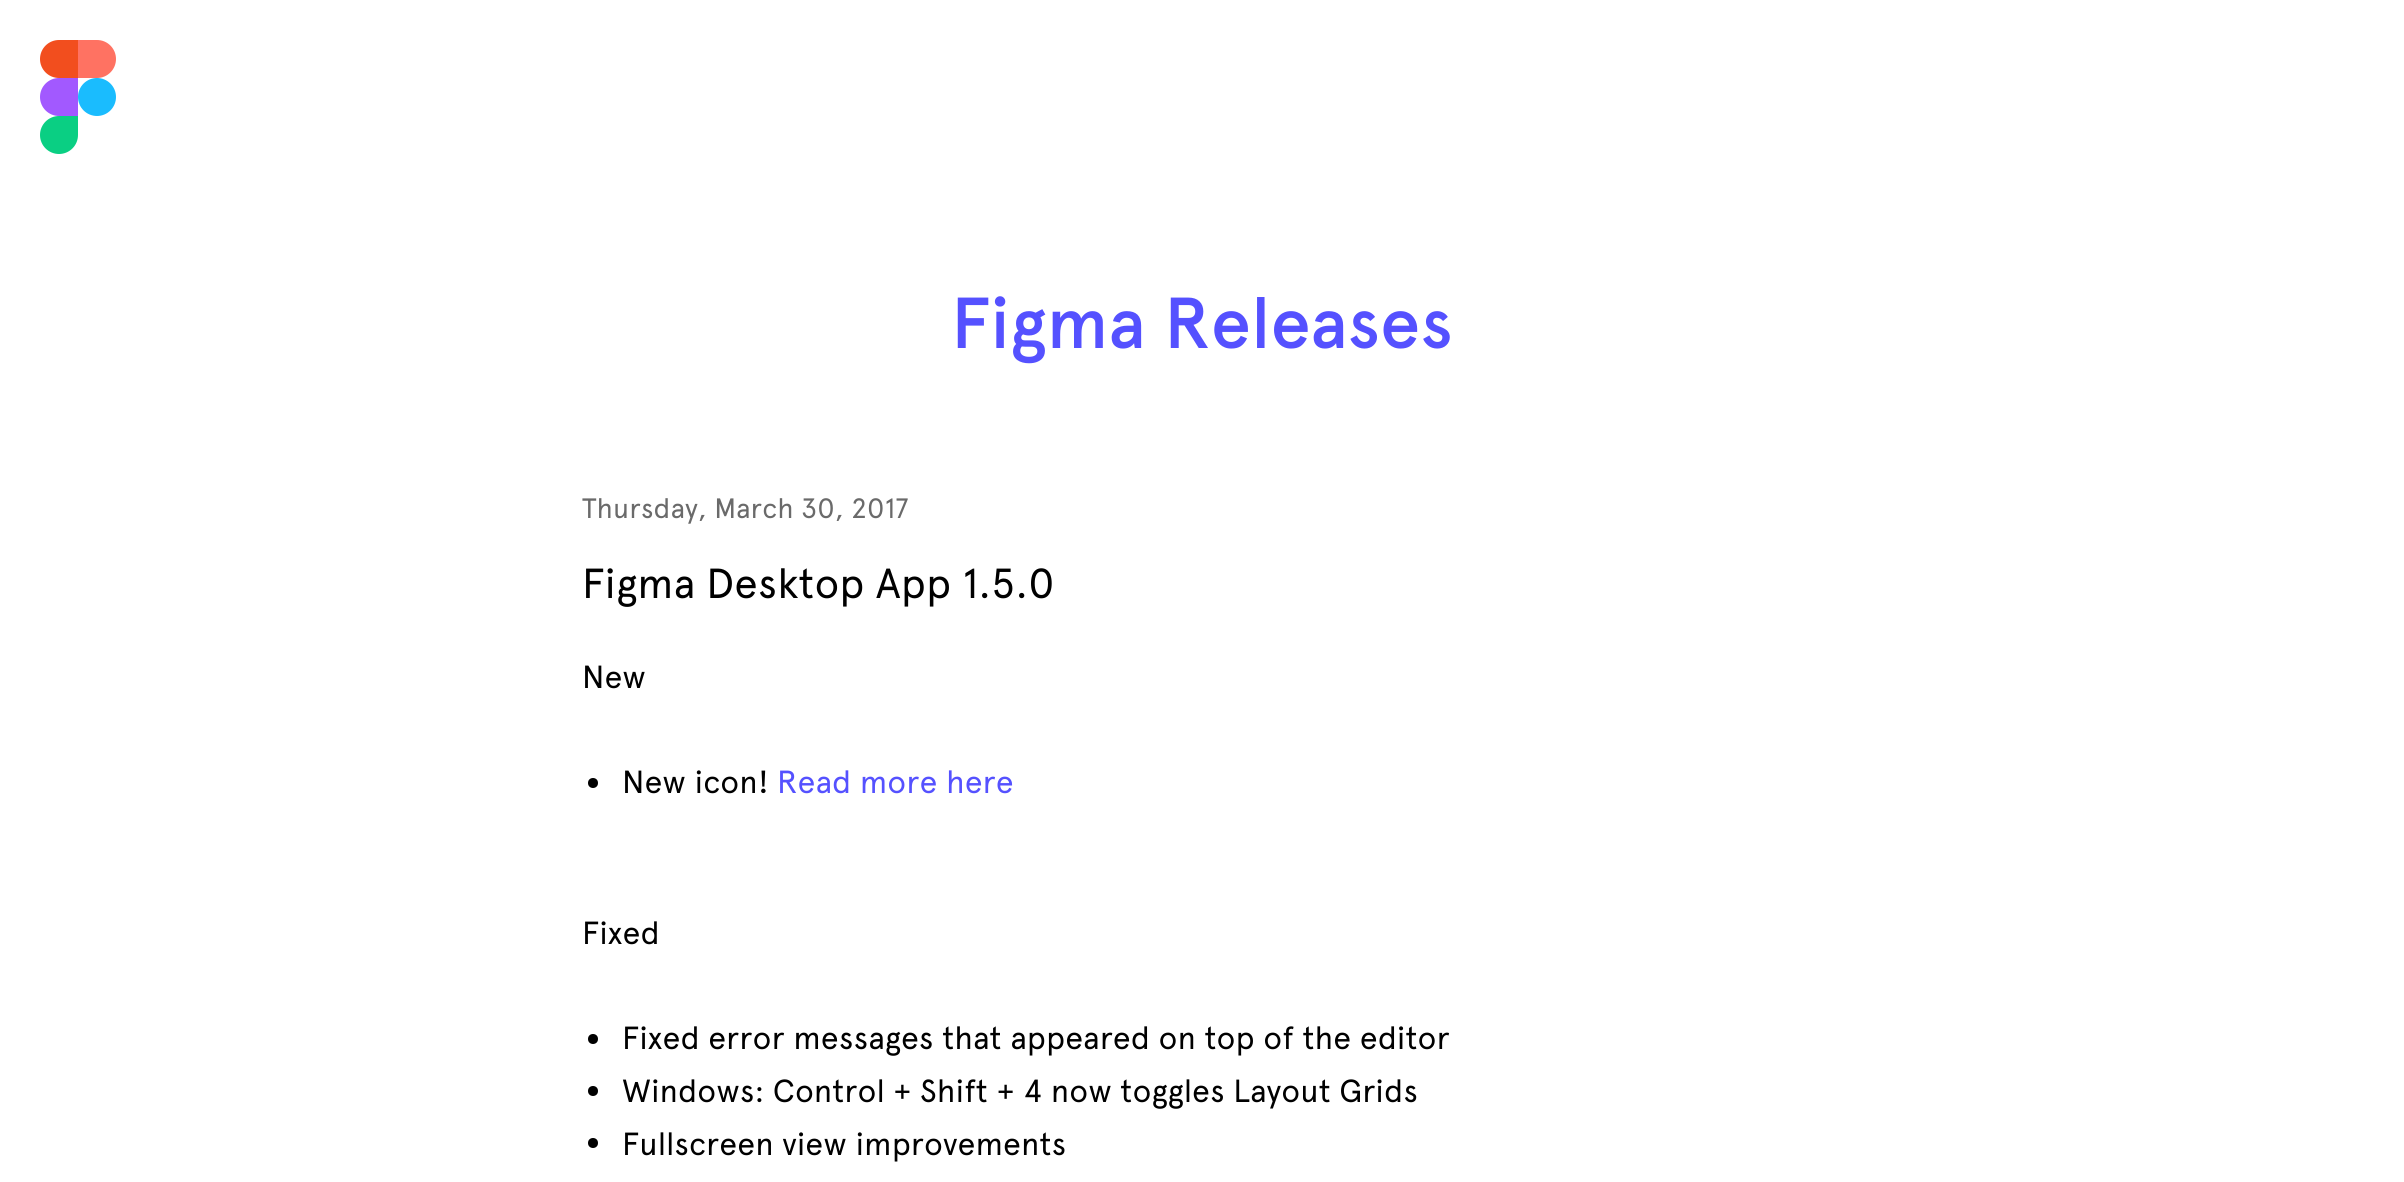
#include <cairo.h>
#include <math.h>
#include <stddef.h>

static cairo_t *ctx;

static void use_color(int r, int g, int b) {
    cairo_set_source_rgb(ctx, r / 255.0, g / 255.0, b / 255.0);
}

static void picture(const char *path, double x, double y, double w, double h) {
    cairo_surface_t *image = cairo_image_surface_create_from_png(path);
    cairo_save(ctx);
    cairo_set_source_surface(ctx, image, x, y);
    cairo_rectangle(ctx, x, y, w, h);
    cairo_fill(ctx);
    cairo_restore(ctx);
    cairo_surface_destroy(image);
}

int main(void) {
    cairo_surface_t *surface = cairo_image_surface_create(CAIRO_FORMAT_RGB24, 2404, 1182);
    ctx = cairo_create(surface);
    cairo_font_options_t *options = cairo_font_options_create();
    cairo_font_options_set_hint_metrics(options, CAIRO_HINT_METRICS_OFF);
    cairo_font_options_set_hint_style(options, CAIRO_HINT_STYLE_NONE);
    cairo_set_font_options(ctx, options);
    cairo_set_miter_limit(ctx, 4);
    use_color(255, 255, 255);
    cairo_paint(ctx);
    picture("img1.png", 40, 40, 76, 114);
    cairo_select_font_face(ctx, "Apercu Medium", CAIRO_FONT_SLANT_NORMAL, CAIRO_FONT_WEIGHT_NORMAL);
    cairo_set_font_size(ctx, 72);
    use_color(85, 81, 255);
    cairo_move_to(ctx, 951, 348);
    cairo_show_text(ctx, "Figma Releases");
    cairo_select_font_face(ctx, "Apercu", CAIRO_FONT_SLANT_NORMAL, CAIRO_FONT_WEIGHT_NORMAL);
    cairo_set_font_size(ctx, 28);
    use_color(106, 106, 106);
    cairo_move_to(ctx, 582, 518);
    cairo_show_text(ctx, "Thursday, March 30, 2017");
    cairo_set_font_size(ctx, 42);
    use_color(0, 0, 0);
    cairo_move_to(ctx, 582, 598);
    cairo_show_text(ctx, "Figma Desktop App 1.5.0");
    cairo_set_font_size(ctx, 32);
    cairo_move_to(ctx, 582, 688);
    cairo_show_text(ctx, "New");
    cairo_new_path(ctx);
    cairo_arc(ctx, 593, 783, 5, 0, 2 * M_PI);
    cairo_fill(ctx);
    cairo_move_to(ctx, 622, 793);
    cairo_show_text(ctx, "New icon!");
    use_color(85, 81, 255);
    cairo_move_to(ctx, 777, 793);
    cairo_show_text(ctx, "Read more here");
    use_color(0, 0, 0);
    cairo_move_to(ctx, 582, 944);
    cairo_show_text(ctx, "Fixed");
    cairo_new_path(ctx);
    cairo_arc(ctx, 593, 1039, 5, 0, 2 * M_PI);
    cairo_fill(ctx);
    cairo_move_to(ctx, 622, 1049);
    cairo_show_text(ctx, "Fixed error messages that appeared on top of the editor");
    cairo_new_path(ctx);
    cairo_arc(ctx, 593, 1091, 5, 0, 2 * M_PI);
    cairo_fill(ctx);
    cairo_move_to(ctx, 622, 1102);
    cairo_show_text(ctx, "Windows: Control + Shift + 4 now toggles Layout Grids");
    cairo_new_path(ctx);
    cairo_arc(ctx, 593, 1143, 5, 0, 2 * M_PI);
    cairo_fill(ctx);
    cairo_move_to(ctx, 622, 1155);
    cairo_show_text(ctx, "Fullscreen view improvements");
    cairo_surface_write_to_png(surface, "result.png");
    cairo_font_options_destroy(options);
    cairo_destroy(ctx);
    cairo_surface_destroy(surface);
    return 0;
}
